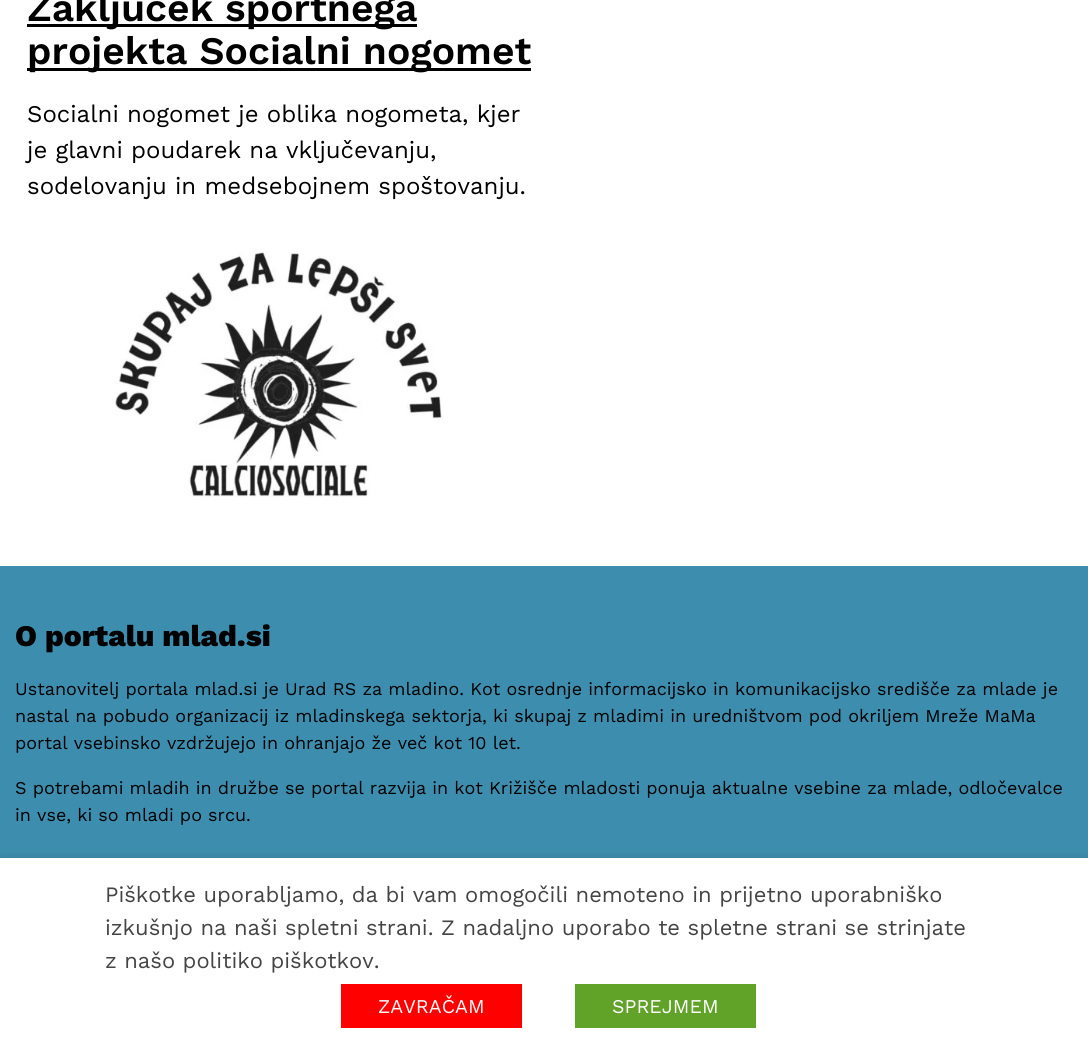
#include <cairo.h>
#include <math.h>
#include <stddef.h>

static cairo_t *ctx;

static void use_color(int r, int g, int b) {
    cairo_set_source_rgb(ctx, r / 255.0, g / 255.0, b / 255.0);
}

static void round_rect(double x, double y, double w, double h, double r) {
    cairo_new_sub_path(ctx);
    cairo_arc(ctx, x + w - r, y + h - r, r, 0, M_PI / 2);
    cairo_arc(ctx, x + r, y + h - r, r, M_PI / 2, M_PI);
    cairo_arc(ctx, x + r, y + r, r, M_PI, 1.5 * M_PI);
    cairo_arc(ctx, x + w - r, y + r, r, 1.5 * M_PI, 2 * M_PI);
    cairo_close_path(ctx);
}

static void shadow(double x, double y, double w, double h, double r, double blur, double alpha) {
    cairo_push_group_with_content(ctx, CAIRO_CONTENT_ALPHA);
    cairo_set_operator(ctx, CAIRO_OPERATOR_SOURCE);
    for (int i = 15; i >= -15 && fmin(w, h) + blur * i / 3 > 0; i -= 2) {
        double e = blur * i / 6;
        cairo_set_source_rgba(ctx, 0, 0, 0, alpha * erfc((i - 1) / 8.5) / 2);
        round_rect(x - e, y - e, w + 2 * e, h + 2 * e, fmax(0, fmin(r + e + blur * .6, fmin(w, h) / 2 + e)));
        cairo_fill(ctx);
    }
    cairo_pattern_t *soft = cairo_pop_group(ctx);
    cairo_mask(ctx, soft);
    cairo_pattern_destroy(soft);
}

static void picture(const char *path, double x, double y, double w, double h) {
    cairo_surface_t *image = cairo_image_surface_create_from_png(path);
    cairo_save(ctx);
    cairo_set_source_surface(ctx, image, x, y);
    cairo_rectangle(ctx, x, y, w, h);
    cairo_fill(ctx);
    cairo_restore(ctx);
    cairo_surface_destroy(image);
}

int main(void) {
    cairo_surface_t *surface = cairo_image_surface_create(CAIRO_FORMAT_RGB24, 1088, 1054);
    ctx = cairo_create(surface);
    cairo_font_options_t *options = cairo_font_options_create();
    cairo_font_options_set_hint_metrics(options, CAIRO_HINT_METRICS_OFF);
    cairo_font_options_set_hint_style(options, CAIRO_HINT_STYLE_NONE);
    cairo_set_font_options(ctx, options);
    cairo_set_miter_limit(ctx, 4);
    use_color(255, 255, 255);
    cairo_paint(ctx);
    use_color(0, 0, 0);
    cairo_rectangle(ctx, 27, 24, 390, 3);
    cairo_fill(ctx);
    cairo_select_font_face(ctx, "Work Sans SemiBold", CAIRO_FONT_SLANT_NORMAL, CAIRO_FONT_WEIGHT_NORMAL);
    cairo_set_font_size(ctx, 39);
    cairo_move_to(ctx, 27, 21);
    cairo_show_text(ctx, "Zaključek športnega");
    cairo_rectangle(ctx, 27, 68, 504, 3);
    cairo_fill(ctx);
    cairo_move_to(ctx, 27, 64);
    cairo_show_text(ctx, "projekta Socialni nogomet");
    cairo_select_font_face(ctx, "Work Sans", CAIRO_FONT_SLANT_NORMAL, CAIRO_FONT_WEIGHT_NORMAL);
    cairo_set_font_size(ctx, 24);
    cairo_move_to(ctx, 27, 122);
    cairo_show_text(ctx, "Socialni nogomet je oblika nogometa, kjer");
    cairo_move_to(ctx, 27, 158);
    cairo_show_text(ctx, "je glavni poudarek na vključevanju,");
    cairo_move_to(ctx, 27, 194);
    cairo_show_text(ctx, "sodelovanju in medsebojnem spoštovanju.");
    picture("img1.png", 115, 252, 329, 245);
    use_color(61, 142, 174);
    cairo_rectangle(ctx, 0, 566, 1088, 292);
    cairo_fill(ctx);
    cairo_select_font_face(ctx, "Work Sans ExtraBold", CAIRO_FONT_SLANT_NORMAL, CAIRO_FONT_WEIGHT_NORMAL);
    cairo_set_font_size(ctx, 30);
    use_color(0, 0, 0);
    cairo_move_to(ctx, 15, 646);
    cairo_show_text(ctx, "O portalu mlad.si");
    cairo_select_font_face(ctx, "Work Sans", CAIRO_FONT_SLANT_NORMAL, CAIRO_FONT_WEIGHT_NORMAL);
    cairo_set_font_size(ctx, 18);
    cairo_move_to(ctx, 15, 695);
    cairo_show_text(ctx, "Ustanovitelj portala mlad.si je Urad RS za mladino. Kot osrednje informacijsko in komunikacijsko središče za mlade je");
    cairo_move_to(ctx, 15, 722);
    cairo_show_text(ctx, "nastal na pobudo organizacij iz mladinskega sektorja, ki skupaj z mladimi in uredništvom pod okriljem Mreže MaMa");
    cairo_move_to(ctx, 15, 749);
    cairo_show_text(ctx, "portal vsebinsko vzdržujejo in ohranjajo že več kot 10 let.");
    cairo_move_to(ctx, 15, 794);
    cairo_show_text(ctx, "S potrebami mladih in družbe se portal razvija in kot Križišče mladosti ponuja aktualne vsebine za mlade, odločevalce");
    cairo_move_to(ctx, 15, 821);
    cairo_show_text(ctx, "in vse, ki so mladi po srcu.");
    use_color(0, 0, 0);
    shadow(0, 866, 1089, 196, 0, 7.5, 0.5);
    use_color(255, 255, 255);
    cairo_rectangle(ctx, 0, 858, 1088, 196);
    cairo_fill(ctx);
    cairo_set_font_size(ctx, 22);
    use_color(68, 68, 68);
    cairo_move_to(ctx, 105, 902);
    cairo_show_text(ctx, "Piškotke uporabljamo, da bi vam omogočili nemoteno in prijetno uporabniško");
    cairo_move_to(ctx, 105, 935);
    cairo_show_text(ctx, "izkušnjo na naši spletni strani. Z nadaljno uporabo te spletne strani se strinjate");
    cairo_move_to(ctx, 105, 968);
    cairo_show_text(ctx, "z našo politiko piškotkov.");
    use_color(255, 0, 0);
    cairo_rectangle(ctx, 341, 984, 181, 44);
    cairo_fill(ctx);
    cairo_set_font_size(ctx, 19.5);
    use_color(255, 255, 255);
    cairo_move_to(ctx, 378, 1013);
    cairo_show_text(ctx, "ZAVRAČAM");
    use_color(97, 162, 41);
    cairo_rectangle(ctx, 575, 984, 181, 44);
    cairo_fill(ctx);
    use_color(255, 255, 255);
    cairo_move_to(ctx, 612, 1013);
    cairo_show_text(ctx, "SPREJMEM");
    cairo_surface_write_to_png(surface, "result.png");
    cairo_font_options_destroy(options);
    cairo_destroy(ctx);
    cairo_surface_destroy(surface);
    return 0;
}
